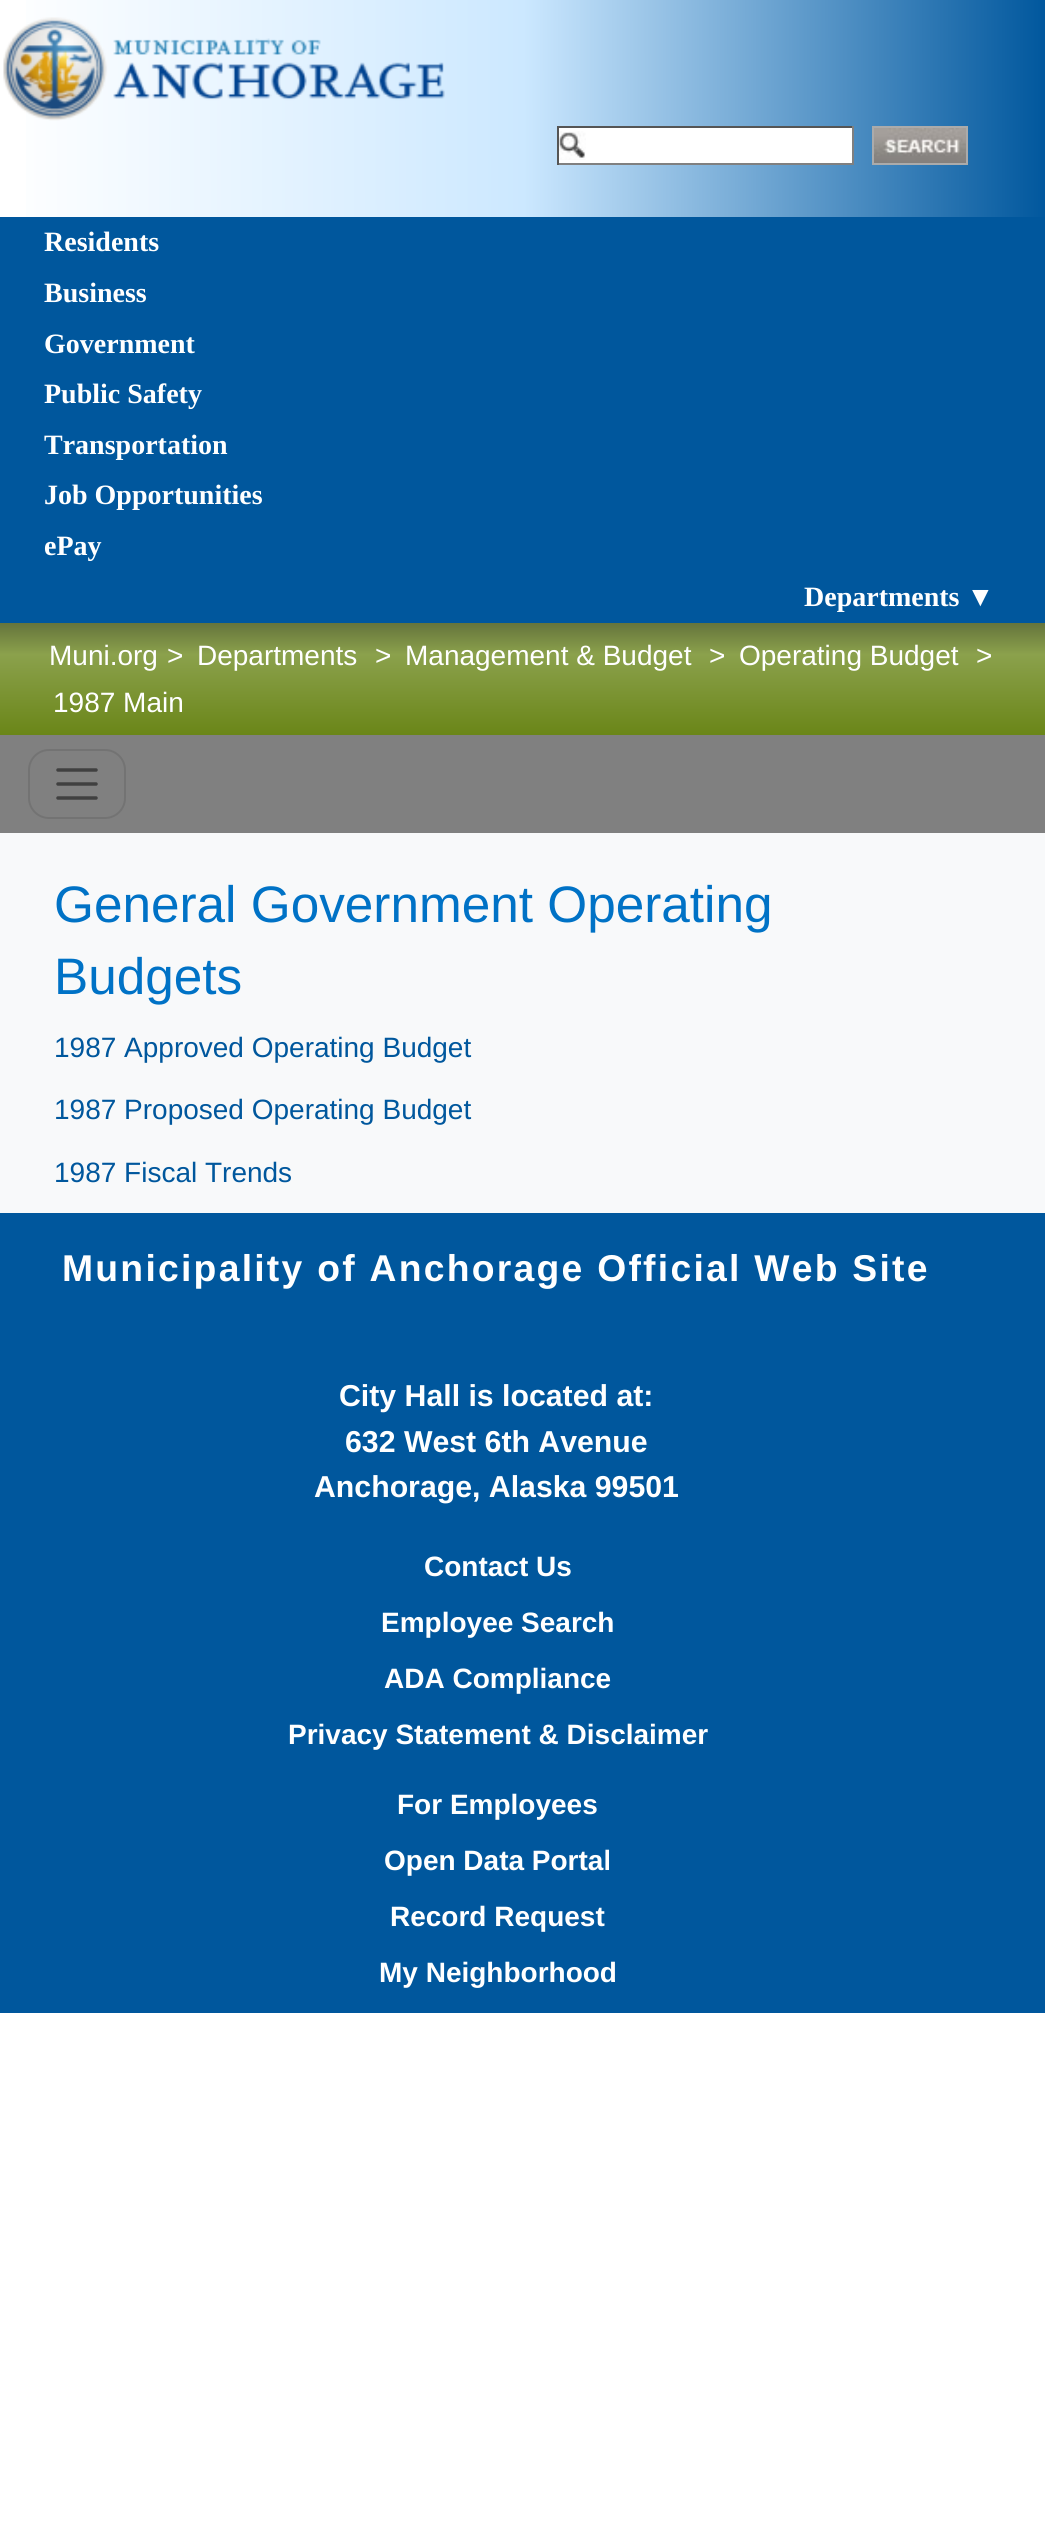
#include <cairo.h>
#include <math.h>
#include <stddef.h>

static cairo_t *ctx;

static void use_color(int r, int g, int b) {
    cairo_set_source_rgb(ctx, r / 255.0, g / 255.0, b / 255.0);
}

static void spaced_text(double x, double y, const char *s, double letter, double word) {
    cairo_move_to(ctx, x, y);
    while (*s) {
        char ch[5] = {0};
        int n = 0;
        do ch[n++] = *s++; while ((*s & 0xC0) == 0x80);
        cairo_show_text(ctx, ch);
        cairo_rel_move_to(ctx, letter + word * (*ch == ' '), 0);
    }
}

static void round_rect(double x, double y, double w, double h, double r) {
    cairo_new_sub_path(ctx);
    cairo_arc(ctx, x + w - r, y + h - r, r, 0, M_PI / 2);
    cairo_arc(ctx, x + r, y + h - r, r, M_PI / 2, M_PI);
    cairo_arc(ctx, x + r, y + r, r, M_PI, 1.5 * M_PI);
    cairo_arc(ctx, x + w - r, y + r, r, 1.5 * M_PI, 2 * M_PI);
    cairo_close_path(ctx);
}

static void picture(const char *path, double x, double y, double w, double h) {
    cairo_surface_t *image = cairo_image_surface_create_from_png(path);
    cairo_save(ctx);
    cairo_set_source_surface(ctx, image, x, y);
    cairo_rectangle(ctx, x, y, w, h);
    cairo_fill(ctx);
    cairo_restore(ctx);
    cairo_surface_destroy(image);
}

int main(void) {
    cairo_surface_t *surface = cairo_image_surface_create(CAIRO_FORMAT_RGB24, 1045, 2525);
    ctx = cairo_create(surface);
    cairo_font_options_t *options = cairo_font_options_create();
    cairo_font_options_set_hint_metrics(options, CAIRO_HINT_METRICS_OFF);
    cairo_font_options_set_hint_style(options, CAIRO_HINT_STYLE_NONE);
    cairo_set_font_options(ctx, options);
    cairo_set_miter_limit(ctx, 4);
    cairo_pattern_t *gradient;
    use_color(255, 255, 255);
    cairo_paint(ctx);
    gradient = cairo_pattern_create_linear(0, 109, 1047, 108);
    cairo_pattern_add_color_stop_rgba(gradient, 0, 1, 1, 1, 1);
    cairo_pattern_add_color_stop_rgba(gradient, 0.5, 0.8, 0.91, 1, 1);
    cairo_pattern_add_color_stop_rgba(gradient, 1, 0, 0.341, 0.616, 1);
    cairo_set_source(ctx, gradient);
    cairo_pattern_destroy(gradient);
    cairo_rectangle(ctx, 26, 0, 1019, 217);
    cairo_fill(ctx);
    picture("img1.png", 3, 17, 442, 104);
    use_color(255, 255, 255);
    cairo_rectangle(ctx, 559, 128, 293, 35);
    cairo_fill(ctx);
    picture("img2.png", 559, 131, 27, 29);
    use_color(85, 85, 85);
    cairo_rectangle(ctx, 557, 126, 297, 2);
    cairo_fill(ctx);
    use_color(128, 128, 128);
    cairo_rectangle(ctx, 852, 126, 2, 39);
    cairo_fill(ctx);
    cairo_rectangle(ctx, 557, 163, 297, 2);
    cairo_fill(ctx);
    use_color(85, 85, 85);
    cairo_rectangle(ctx, 557, 126, 2, 39);
    cairo_fill(ctx);
    picture("img3.png", 874, 128, 92, 35);
    cairo_rectangle(ctx, 873, 127, 94, 37);
    use_color(171, 171, 171);
    cairo_stroke(ctx);
    use_color(0, 87, 157);
    cairo_rectangle(ctx, 0, 217, 1045, 406);
    cairo_fill(ctx);
    cairo_select_font_face(ctx, "Liberation Serif", CAIRO_FONT_SLANT_NORMAL, CAIRO_FONT_WEIGHT_BOLD);
    cairo_set_font_size(ctx, 28);
    use_color(255, 255, 255);
    cairo_move_to(ctx, 44, 251);
    cairo_show_text(ctx, "Residents");
    cairo_move_to(ctx, 44, 302);
    cairo_show_text(ctx, "Business");
    cairo_move_to(ctx, 44, 353);
    cairo_show_text(ctx, "Government");
    cairo_move_to(ctx, 44, 403);
    cairo_show_text(ctx, "Public Safety");
    cairo_move_to(ctx, 44, 454);
    cairo_show_text(ctx, "Transportation");
    cairo_move_to(ctx, 44, 504);
    cairo_show_text(ctx, "Job Opportunities");
    cairo_move_to(ctx, 44, 555);
    cairo_show_text(ctx, "ePay");
    cairo_move_to(ctx, 804, 606);
    cairo_show_text(ctx, "Departments ▼");
    use_color(248, 249, 250);
    cairo_rectangle(ctx, 0, 833, 1045, 380);
    cairo_fill(ctx);
    gradient = cairo_pattern_create_linear(523, 623, 523, 735);
    cairo_pattern_add_color_stop_rgba(gradient, 0, 0.396, 0.455, 0.235, 1);
    cairo_pattern_add_color_stop_rgba(gradient, 0.28, 0.545, 0.631, 0.298, 1);
    cairo_pattern_add_color_stop_rgba(gradient, 1, 0.416, 0.525, 0.094, 1);
    cairo_set_source(ctx, gradient);
    cairo_pattern_destroy(gradient);
    cairo_rectangle(ctx, 0, 623, 1045, 112);
    cairo_fill(ctx);
    cairo_select_font_face(ctx, "Liberation Sans", CAIRO_FONT_SLANT_NORMAL, CAIRO_FONT_WEIGHT_NORMAL);
    use_color(255, 255, 255);
    cairo_move_to(ctx, 49, 665);
    cairo_show_text(ctx, "Muni.org");
    cairo_move_to(ctx, 167, 665);
    cairo_show_text(ctx, ">");
    cairo_move_to(ctx, 197, 665);
    cairo_show_text(ctx, "Departments");
    cairo_move_to(ctx, 375, 665);
    cairo_show_text(ctx, ">");
    cairo_move_to(ctx, 405, 665);
    cairo_show_text(ctx, "Management & Budget");
    cairo_move_to(ctx, 709, 665);
    cairo_show_text(ctx, ">");
    cairo_move_to(ctx, 739, 665);
    cairo_show_text(ctx, "Operating Budget");
    cairo_move_to(ctx, 976, 665);
    cairo_show_text(ctx, ">");
    cairo_move_to(ctx, 53, 712);
    cairo_show_text(ctx, "1987 Main");
    use_color(128, 128, 128);
    cairo_rectangle(ctx, 0, 735, 1045, 98);
    cairo_fill(ctx);
    round_rect(29, 750, 96, 68, 20);
    use_color(115, 115, 115);
    cairo_stroke(ctx);
    cairo_new_path(ctx);
    cairo_move_to(ctx, 58, 770);
    cairo_line_to(ctx, 96, 770);
    cairo_move_to(ctx, 58, 784);
    cairo_line_to(ctx, 96, 784);
    cairo_move_to(ctx, 58, 798);
    cairo_line_to(ctx, 96, 798);
    use_color(64, 64, 64);
    cairo_set_line_width(ctx, 3.5);
    cairo_set_line_cap(ctx, CAIRO_LINE_CAP_ROUND);
    cairo_stroke(ctx);
    cairo_set_font_size(ctx, 51.3);
    use_color(0, 114, 198);
    cairo_move_to(ctx, 54, 922);
    cairo_show_text(ctx, "General Government Operating");
    cairo_move_to(ctx, 54, 994);
    cairo_show_text(ctx, "Budgets");
    cairo_set_font_size(ctx, 28);
    use_color(0, 87, 157);
    cairo_move_to(ctx, 54, 1057);
    cairo_show_text(ctx, "1987 Approved Operating Budget");
    cairo_move_to(ctx, 54, 1119);
    cairo_show_text(ctx, "1987 Proposed Operating Budget");
    cairo_move_to(ctx, 54, 1182);
    cairo_show_text(ctx, "1987 Fiscal Trends");
    cairo_rectangle(ctx, 0, 1213, 1045, 800);
    cairo_fill(ctx);
    cairo_select_font_face(ctx, "Liberation Sans", CAIRO_FONT_SLANT_NORMAL, CAIRO_FONT_WEIGHT_BOLD);
    cairo_set_font_size(ctx, 37.3);
    use_color(255, 255, 255);
    spaced_text(62, 1281, "Municipality of Anchorage Official Web Site", 2.25, 0);
    cairo_set_font_size(ctx, 30.25);
    cairo_move_to(ctx, 339, 1406);
    cairo_show_text(ctx, "City Hall is located at:");
    cairo_move_to(ctx, 345, 1452);
    cairo_show_text(ctx, "632 West 6th Avenue");
    cairo_move_to(ctx, 314, 1497);
    cairo_show_text(ctx, "Anchorage, Alaska 99501");
    cairo_set_font_size(ctx, 28);
    cairo_move_to(ctx, 424, 1576);
    cairo_show_text(ctx, "Contact Us");
    cairo_move_to(ctx, 381, 1632);
    cairo_show_text(ctx, "Employee Search");
    cairo_move_to(ctx, 384, 1688);
    cairo_show_text(ctx, "ADA Compliance");
    cairo_move_to(ctx, 288, 1744);
    cairo_show_text(ctx, "Privacy Statement & Disclaimer");
    cairo_move_to(ctx, 397, 1814);
    cairo_show_text(ctx, "For Employees");
    cairo_move_to(ctx, 384, 1870);
    cairo_show_text(ctx, "Open Data Portal");
    cairo_move_to(ctx, 390, 1926);
    cairo_show_text(ctx, "Record Request");
    cairo_move_to(ctx, 379, 1982);
    cairo_show_text(ctx, "My Neighborhood");
    cairo_surface_write_to_png(surface, "result.png");
    cairo_font_options_destroy(options);
    cairo_destroy(ctx);
    cairo_surface_destroy(surface);
    return 0;
}
